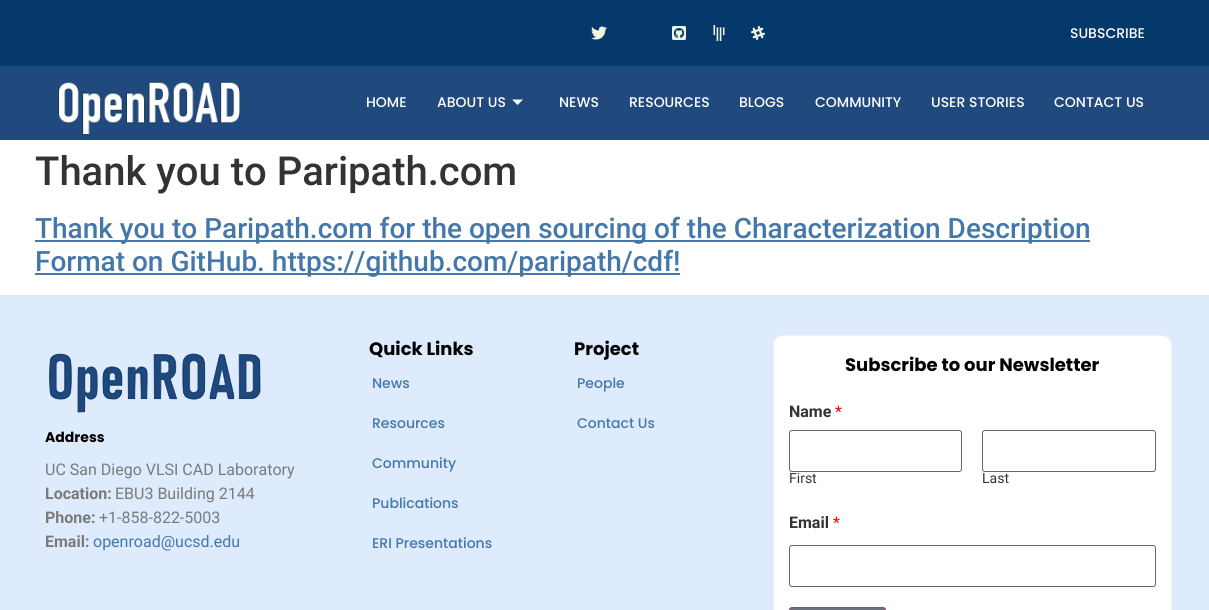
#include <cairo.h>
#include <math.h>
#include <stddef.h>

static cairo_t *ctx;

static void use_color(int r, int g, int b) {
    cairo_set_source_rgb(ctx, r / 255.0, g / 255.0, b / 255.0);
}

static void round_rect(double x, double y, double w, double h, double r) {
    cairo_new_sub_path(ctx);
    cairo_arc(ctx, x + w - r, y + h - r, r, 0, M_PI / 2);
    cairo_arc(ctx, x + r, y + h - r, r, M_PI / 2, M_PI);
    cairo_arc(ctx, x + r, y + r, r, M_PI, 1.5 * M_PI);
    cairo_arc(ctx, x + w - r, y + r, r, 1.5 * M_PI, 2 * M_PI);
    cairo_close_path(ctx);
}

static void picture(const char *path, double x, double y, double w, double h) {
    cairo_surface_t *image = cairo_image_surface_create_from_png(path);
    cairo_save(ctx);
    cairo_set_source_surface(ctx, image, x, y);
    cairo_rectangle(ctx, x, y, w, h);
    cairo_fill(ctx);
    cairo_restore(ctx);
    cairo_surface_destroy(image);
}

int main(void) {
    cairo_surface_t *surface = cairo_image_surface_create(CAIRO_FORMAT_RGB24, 1209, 610);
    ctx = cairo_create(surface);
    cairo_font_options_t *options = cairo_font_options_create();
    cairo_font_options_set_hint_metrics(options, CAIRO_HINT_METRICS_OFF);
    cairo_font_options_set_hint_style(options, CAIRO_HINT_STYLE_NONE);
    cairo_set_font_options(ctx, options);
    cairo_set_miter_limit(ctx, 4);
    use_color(255, 255, 255);
    cairo_paint(ctx);
    use_color(5, 56, 107);
    cairo_rectangle(ctx, 0, 0, 1209, 66);
    cairo_fill(ctx);
    picture("img1.png", 591, 26, 16, 14);
    picture("img2.png", 672, 26, 14, 14);
    picture("img3.png", 713, 25, 12, 16);
    picture("img4.png", 751, 26, 14, 14);
    cairo_select_font_face(ctx, "Poppins Medium", CAIRO_FONT_SLANT_NORMAL, CAIRO_FONT_WEIGHT_NORMAL);
    cairo_set_font_size(ctx, 14);
    use_color(255, 255, 255);
    cairo_move_to(ctx, 1070, 38);
    cairo_show_text(ctx, "SUBSCRIBE");
    use_color(32, 73, 125);
    cairo_rectangle(ctx, 0, 66, 1209, 74);
    cairo_fill(ctx);
    picture("img5.png", 58, 82, 182, 53);
    use_color(255, 255, 255);
    cairo_move_to(ctx, 366, 107);
    cairo_show_text(ctx, "HOME");
    cairo_move_to(ctx, 437, 107);
    cairo_show_text(ctx, "ABOUT US");
    cairo_new_path(ctx);
    cairo_move_to(ctx, 512, 99.5);
    cairo_line_to(ctx, 523, 99.5);
    cairo_line_to(ctx, 517.5, 105);
    cairo_close_path(ctx);
    cairo_fill(ctx);
    cairo_move_to(ctx, 559, 107);
    cairo_show_text(ctx, "NEWS");
    cairo_move_to(ctx, 629, 107);
    cairo_show_text(ctx, "RESOURCES");
    cairo_move_to(ctx, 739, 107);
    cairo_show_text(ctx, "BLOGS");
    cairo_move_to(ctx, 815, 107);
    cairo_show_text(ctx, "COMMUNITY");
    cairo_move_to(ctx, 931, 107);
    cairo_show_text(ctx, "USER STORIES");
    cairo_move_to(ctx, 1054, 107);
    cairo_show_text(ctx, "CONTACT US");
    cairo_select_font_face(ctx, "Roboto Medium", CAIRO_FONT_SLANT_NORMAL, CAIRO_FONT_WEIGHT_NORMAL);
    cairo_set_font_size(ctx, 40);
    use_color(51, 51, 51);
    cairo_move_to(ctx, 35, 185);
    cairo_show_text(ctx, "Thank you to Paripath.com");
    use_color(68, 119, 170);
    cairo_rectangle(ctx, 35, 240, 1055, 2);
    cairo_fill(ctx);
    cairo_set_font_size(ctx, 28);
    cairo_move_to(ctx, 35, 238);
    cairo_show_text(ctx, "Thank you to Paripath.com for the open sourcing of the Characterization Description");
    cairo_rectangle(ctx, 35, 273, 645, 2);
    cairo_fill(ctx);
    cairo_move_to(ctx, 35, 271);
    cairo_show_text(ctx, "Format on GitHub. https://github.com/paripath/cdf!");
    use_color(222, 235, 253);
    cairo_rectangle(ctx, 0, 295, 1209, 315);
    cairo_fill(ctx);
    picture("img6.png", 49, 353, 212, 60);
    cairo_select_font_face(ctx, "Poppins", CAIRO_FONT_SLANT_NORMAL, CAIRO_FONT_WEIGHT_BOLD);
    cairo_set_font_size(ctx, 14);
    use_color(0, 0, 0);
    cairo_move_to(ctx, 45, 442);
    cairo_show_text(ctx, "Address");
    cairo_select_font_face(ctx, "Roboto", CAIRO_FONT_SLANT_NORMAL, CAIRO_FONT_WEIGHT_NORMAL);
    cairo_set_font_size(ctx, 16);
    use_color(122, 122, 122);
    cairo_move_to(ctx, 45, 475);
    cairo_show_text(ctx, "UC San Diego VLSI CAD Laboratory");
    cairo_select_font_face(ctx, "Roboto", CAIRO_FONT_SLANT_NORMAL, CAIRO_FONT_WEIGHT_BOLD);
    cairo_move_to(ctx, 45, 499);
    cairo_show_text(ctx, "Location:");
    cairo_select_font_face(ctx, "Roboto", CAIRO_FONT_SLANT_NORMAL, CAIRO_FONT_WEIGHT_NORMAL);
    cairo_move_to(ctx, 115, 499);
    cairo_show_text(ctx, "EBU3 Building 2144");
    cairo_select_font_face(ctx, "Roboto", CAIRO_FONT_SLANT_NORMAL, CAIRO_FONT_WEIGHT_BOLD);
    cairo_move_to(ctx, 45, 523);
    cairo_show_text(ctx, "Phone:");
    cairo_select_font_face(ctx, "Roboto", CAIRO_FONT_SLANT_NORMAL, CAIRO_FONT_WEIGHT_NORMAL);
    cairo_move_to(ctx, 99, 523);
    cairo_show_text(ctx, "+1-858-822-5003");
    cairo_select_font_face(ctx, "Roboto", CAIRO_FONT_SLANT_NORMAL, CAIRO_FONT_WEIGHT_BOLD);
    cairo_move_to(ctx, 45, 547);
    cairo_show_text(ctx, "Email:");
    cairo_select_font_face(ctx, "Roboto", CAIRO_FONT_SLANT_NORMAL, CAIRO_FONT_WEIGHT_NORMAL);
    use_color(68, 119, 170);
    cairo_move_to(ctx, 93, 547);
    cairo_show_text(ctx, "openroad@ucsd.edu");
    cairo_select_font_face(ctx, "Poppins", CAIRO_FONT_SLANT_NORMAL, CAIRO_FONT_WEIGHT_BOLD);
    cairo_set_font_size(ctx, 18);
    use_color(0, 0, 0);
    cairo_move_to(ctx, 369, 355);
    cairo_show_text(ctx, "Quick Links");
    cairo_select_font_face(ctx, "Poppins Medium", CAIRO_FONT_SLANT_NORMAL, CAIRO_FONT_WEIGHT_NORMAL);
    cairo_set_font_size(ctx, 14);
    use_color(68, 119, 170);
    cairo_move_to(ctx, 372, 388);
    cairo_show_text(ctx, "News");
    cairo_move_to(ctx, 372, 428);
    cairo_show_text(ctx, "Resources");
    cairo_move_to(ctx, 372, 468);
    cairo_show_text(ctx, "Community");
    cairo_move_to(ctx, 372, 508);
    cairo_show_text(ctx, "Publications");
    cairo_move_to(ctx, 372, 548);
    cairo_show_text(ctx, "ERI Presentations");
    cairo_select_font_face(ctx, "Poppins", CAIRO_FONT_SLANT_NORMAL, CAIRO_FONT_WEIGHT_BOLD);
    cairo_set_font_size(ctx, 18);
    use_color(0, 0, 0);
    cairo_move_to(ctx, 574, 355);
    cairo_show_text(ctx, "Project");
    cairo_select_font_face(ctx, "Poppins Medium", CAIRO_FONT_SLANT_NORMAL, CAIRO_FONT_WEIGHT_NORMAL);
    cairo_set_font_size(ctx, 14);
    use_color(68, 119, 170);
    cairo_move_to(ctx, 577, 388);
    cairo_show_text(ctx, "People");
    cairo_move_to(ctx, 577, 428);
    cairo_show_text(ctx, "Contact Us");
    use_color(255, 255, 255);
    round_rect(773.5, 335.5, 398, 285, 9.5);
    cairo_fill_preserve(ctx);
    use_color(240, 240, 240);
    cairo_set_line_width(ctx, 1);
    cairo_stroke(ctx);
    cairo_select_font_face(ctx, "Poppins", CAIRO_FONT_SLANT_NORMAL, CAIRO_FONT_WEIGHT_BOLD);
    cairo_set_font_size(ctx, 18);
    use_color(0, 0, 0);
    cairo_move_to(ctx, 845, 371);
    cairo_show_text(ctx, "Subscribe to our Newsletter");
    cairo_select_font_face(ctx, "Roboto", CAIRO_FONT_SLANT_NORMAL, CAIRO_FONT_WEIGHT_BOLD);
    cairo_set_font_size(ctx, 16);
    use_color(51, 51, 51);
    cairo_move_to(ctx, 789, 417);
    cairo_show_text(ctx, "Name");
    cairo_select_font_face(ctx, "Roboto", CAIRO_FONT_SLANT_NORMAL, CAIRO_FONT_WEIGHT_NORMAL);
    use_color(255, 0, 0);
    cairo_move_to(ctx, 835, 417);
    cairo_show_text(ctx, "*");
    round_rect(789.5, 430.5, 172, 41, 2.5);
    use_color(102, 102, 102);
    cairo_stroke(ctx);
    cairo_set_font_size(ctx, 14);
    use_color(51, 51, 51);
    cairo_move_to(ctx, 789, 483);
    cairo_show_text(ctx, "First");
    round_rect(982.5, 430.5, 173, 41, 2.5);
    use_color(102, 102, 102);
    cairo_stroke(ctx);
    use_color(51, 51, 51);
    cairo_move_to(ctx, 982, 483);
    cairo_show_text(ctx, "Last");
    cairo_select_font_face(ctx, "Roboto", CAIRO_FONT_SLANT_NORMAL, CAIRO_FONT_WEIGHT_BOLD);
    cairo_set_font_size(ctx, 16);
    cairo_move_to(ctx, 789, 528);
    cairo_show_text(ctx, "Email");
    cairo_select_font_face(ctx, "Roboto", CAIRO_FONT_SLANT_NORMAL, CAIRO_FONT_WEIGHT_NORMAL);
    use_color(255, 0, 0);
    cairo_move_to(ctx, 833, 528);
    cairo_show_text(ctx, "*");
    round_rect(789.5, 545.5, 366, 41, 2.5);
    use_color(102, 102, 102);
    cairo_stroke(ctx);
    use_color(105, 114, 125);
    round_rect(789.5, 607.5, 96, 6, 2.5);
    cairo_fill_preserve(ctx);
    use_color(204, 51, 102);
    cairo_stroke(ctx);
    cairo_surface_write_to_png(surface, "result.png");
    cairo_font_options_destroy(options);
    cairo_destroy(ctx);
    cairo_surface_destroy(surface);
    return 0;
}
